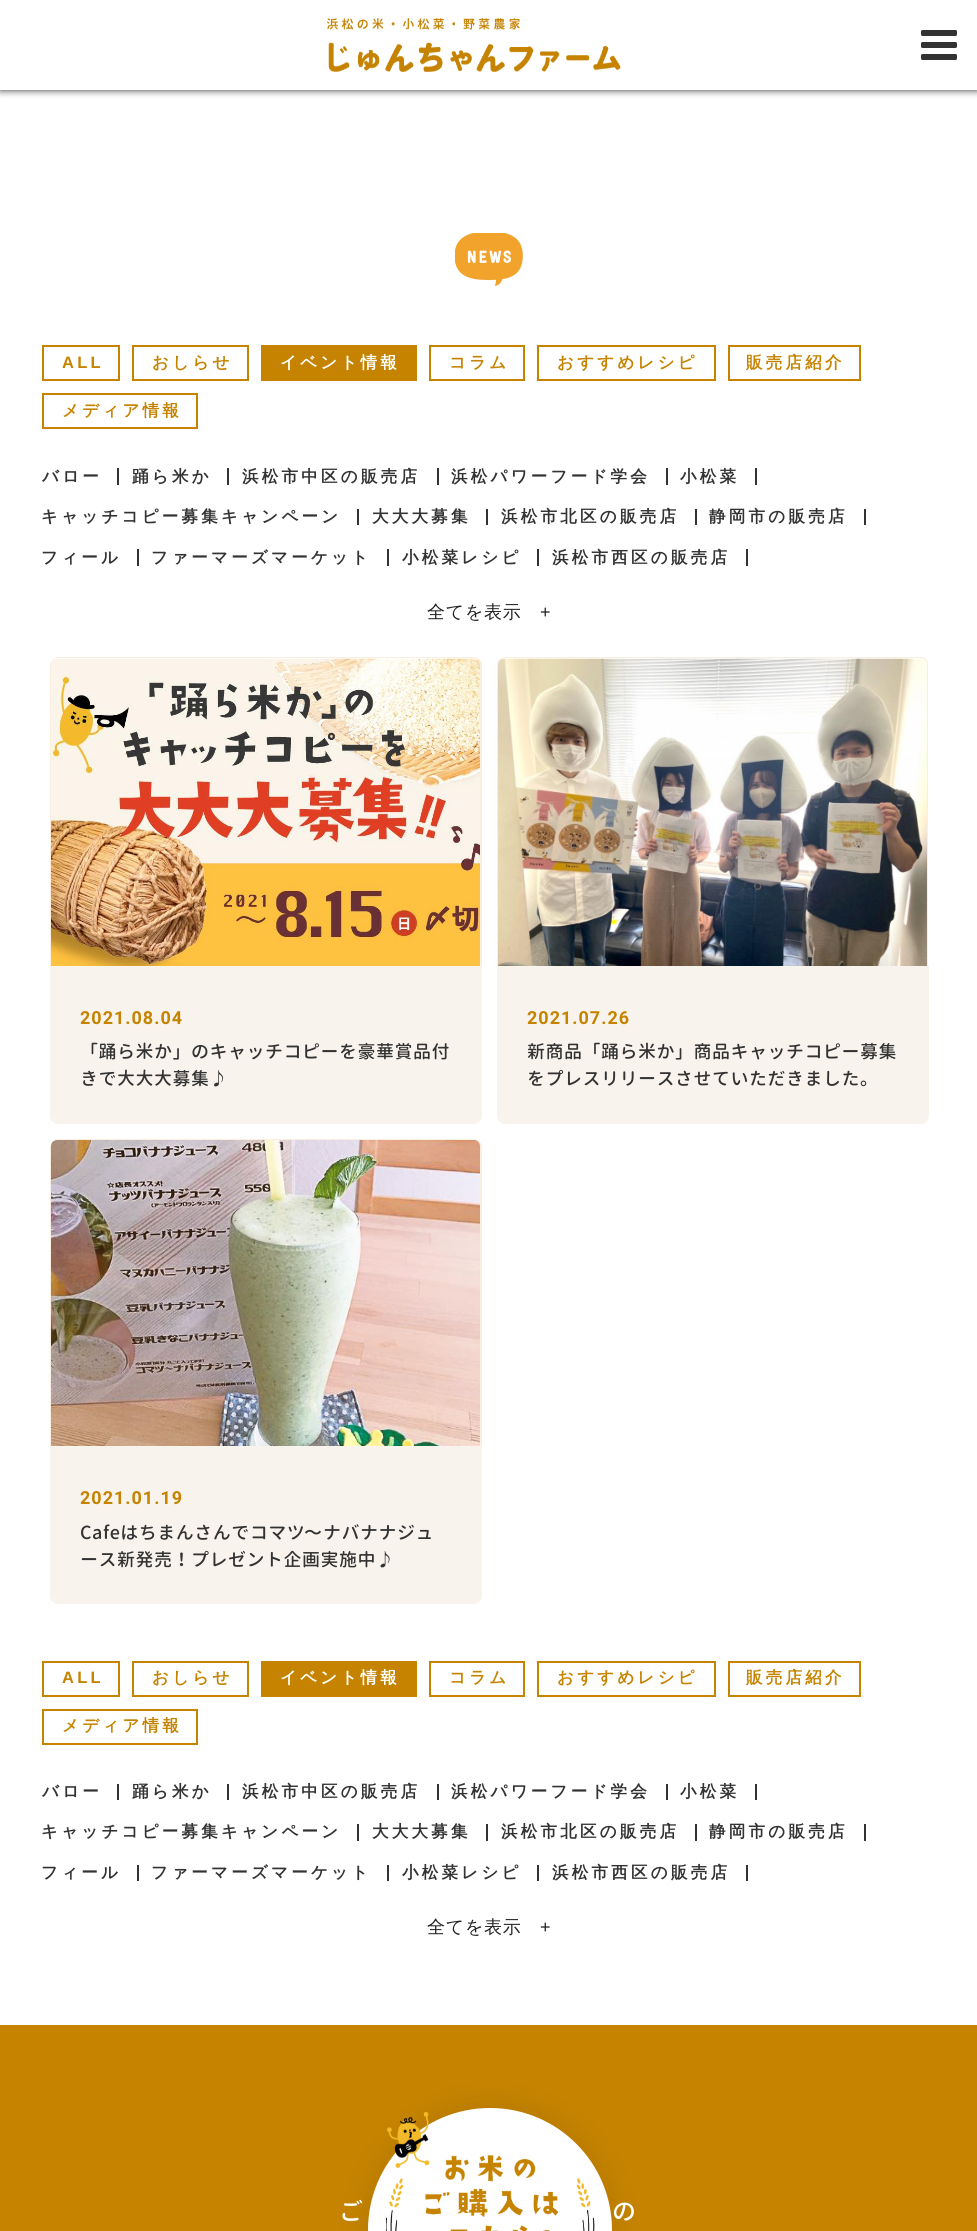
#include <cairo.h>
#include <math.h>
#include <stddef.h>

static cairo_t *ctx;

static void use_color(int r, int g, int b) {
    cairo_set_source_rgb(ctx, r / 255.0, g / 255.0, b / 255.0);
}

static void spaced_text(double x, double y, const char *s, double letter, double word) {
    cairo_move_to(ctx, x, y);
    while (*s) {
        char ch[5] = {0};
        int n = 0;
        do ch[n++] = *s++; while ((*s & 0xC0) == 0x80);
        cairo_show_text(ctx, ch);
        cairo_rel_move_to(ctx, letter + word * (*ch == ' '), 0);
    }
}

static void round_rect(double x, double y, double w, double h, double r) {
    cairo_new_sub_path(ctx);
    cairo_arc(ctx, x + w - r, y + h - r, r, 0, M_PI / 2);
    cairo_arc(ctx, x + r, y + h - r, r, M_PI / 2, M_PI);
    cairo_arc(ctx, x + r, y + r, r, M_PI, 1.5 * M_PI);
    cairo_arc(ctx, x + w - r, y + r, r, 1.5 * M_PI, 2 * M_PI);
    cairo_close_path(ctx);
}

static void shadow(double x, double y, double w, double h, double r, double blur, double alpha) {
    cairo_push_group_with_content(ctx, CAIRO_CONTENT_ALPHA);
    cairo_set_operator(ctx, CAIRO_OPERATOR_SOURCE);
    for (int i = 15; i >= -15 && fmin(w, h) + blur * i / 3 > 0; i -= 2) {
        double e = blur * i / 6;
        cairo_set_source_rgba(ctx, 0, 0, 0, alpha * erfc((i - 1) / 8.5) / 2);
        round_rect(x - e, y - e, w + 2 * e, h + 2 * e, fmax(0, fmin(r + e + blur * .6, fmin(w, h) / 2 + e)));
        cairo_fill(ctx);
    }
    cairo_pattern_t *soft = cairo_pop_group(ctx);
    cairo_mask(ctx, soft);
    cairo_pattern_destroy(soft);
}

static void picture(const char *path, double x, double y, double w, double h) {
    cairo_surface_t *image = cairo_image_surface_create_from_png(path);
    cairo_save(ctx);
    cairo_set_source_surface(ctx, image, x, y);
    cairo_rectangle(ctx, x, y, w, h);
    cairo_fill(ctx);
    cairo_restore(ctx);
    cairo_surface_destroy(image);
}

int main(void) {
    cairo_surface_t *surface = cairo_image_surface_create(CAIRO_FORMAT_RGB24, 977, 2231);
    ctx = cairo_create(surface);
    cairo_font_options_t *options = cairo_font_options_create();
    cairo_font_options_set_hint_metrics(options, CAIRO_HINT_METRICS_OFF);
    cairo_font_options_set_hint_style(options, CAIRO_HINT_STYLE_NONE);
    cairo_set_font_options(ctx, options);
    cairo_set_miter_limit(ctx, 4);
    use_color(255, 255, 255);
    cairo_paint(ctx);
    cairo_save(ctx);
    cairo_rectangle(ctx, 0, 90, 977, 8);
    cairo_clip(ctx);
    use_color(0, 0, 0);
    shadow(0, 0, 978, 90, 0, 4, 0.8);
    cairo_restore(ctx);
    picture("img1.png", 327, 18, 294, 54);
    picture("img2.png", 921, 30, 36, 30);
    picture("img3.png", 455, 233, 68, 53);
    cairo_rectangle(ctx, 43, 346, 76, 34);
    use_color(197, 131, 0);
    cairo_stroke(ctx);
    cairo_select_font_face(ctx, "Liberation Sans", CAIRO_FONT_SLANT_NORMAL, CAIRO_FONT_WEIGHT_BOLD);
    cairo_set_font_size(ctx, 16.5);
    spaced_text(62, 368, "ALL", 3.25, 0);
    cairo_rectangle(ctx, 133, 346, 115, 34);
    cairo_stroke(ctx);
    cairo_select_font_face(ctx, "WenQuanYi Zen Hei", CAIRO_FONT_SLANT_NORMAL, CAIRO_FONT_WEIGHT_BOLD);
    spaced_text(152, 368, "おしらせ", 3.25, 0);
    cairo_rectangle(ctx, 261, 345, 156, 36);
    cairo_fill(ctx);
    use_color(255, 255, 255);
    spaced_text(280, 368, "イベント情報", 3.25, 0);
    cairo_rectangle(ctx, 430, 346, 94, 34);
    use_color(197, 131, 0);
    cairo_stroke(ctx);
    spaced_text(449, 368, "コラム", 3.25, 0);
    cairo_rectangle(ctx, 538, 346, 177, 34);
    cairo_stroke(ctx);
    spaced_text(557, 368, "おすすめレシピ", 3.25, 0);
    cairo_rectangle(ctx, 729, 346, 131, 34);
    cairo_stroke(ctx);
    spaced_text(746, 368, "販売店紹介", 3.25, 0);
    cairo_rectangle(ctx, 43, 394, 154, 34);
    cairo_stroke(ctx);
    spaced_text(62, 416, "メディア情報", 3.25, 0);
    use_color(51, 51, 51);
    cairo_rectangle(ctx, 117, 468, 2, 17);
    cairo_fill(ctx);
    spaced_text(42, 482, "バロー", 3.25, 0);
    cairo_rectangle(ctx, 227, 468, 2, 17);
    cairo_fill(ctx);
    spaced_text(132, 482, "踊ら米か", 3.25, 0);
    cairo_rectangle(ctx, 437, 468, 2, 17);
    cairo_fill(ctx);
    spaced_text(242, 482, "浜松市中区の販売店", 3.25, 0);
    cairo_rectangle(ctx, 666, 468, 2, 17);
    cairo_fill(ctx);
    spaced_text(451, 482, "浜松パワーフード学会", 3.25, 0);
    cairo_rectangle(ctx, 755, 468, 2, 17);
    cairo_fill(ctx);
    spaced_text(680, 482, "小松菜", 3.25, 0);
    cairo_rectangle(ctx, 357, 509, 2, 16);
    cairo_fill(ctx);
    spaced_text(41, 522, "キャッチコピー募集キャンペーン", 3.25, 0);
    cairo_rectangle(ctx, 486, 509, 2, 16);
    cairo_fill(ctx);
    spaced_text(372, 522, "大大大募集", 3.25, 0);
    cairo_rectangle(ctx, 695, 509, 2, 16);
    cairo_fill(ctx);
    spaced_text(501, 522, "浜松市北区の販売店", 3.25, 0);
    cairo_rectangle(ctx, 864, 509, 2, 16);
    cairo_fill(ctx);
    spaced_text(709, 522, "静岡市の販売店", 3.25, 0);
    cairo_rectangle(ctx, 137, 549, 2, 17);
    cairo_fill(ctx);
    spaced_text(41, 563, "フィール", 3.25, 0);
    cairo_rectangle(ctx, 387, 549, 2, 17);
    cairo_fill(ctx);
    spaced_text(151, 563, "ファーマーズマーケット", 3.25, 0);
    cairo_rectangle(ctx, 537, 549, 2, 17);
    cairo_fill(ctx);
    spaced_text(402, 563, "小松菜レシピ", 3.25, 0);
    cairo_rectangle(ctx, 746, 549, 2, 17);
    cairo_fill(ctx);
    spaced_text(552, 563, "浜松市西区の販売店", 3.25, 0);
    cairo_select_font_face(ctx, "WenQuanYi Zen Hei Medium", CAIRO_FONT_SLANT_NORMAL, CAIRO_FONT_WEIGHT_NORMAL);
    cairo_set_font_size(ctx, 18);
    use_color(34, 34, 34);
    spaced_text(427, 618, "全てを表示", 0.75, 0);
    cairo_select_font_face(ctx, "Liberation Sans", CAIRO_FONT_SLANT_NORMAL, CAIRO_FONT_WEIGHT_NORMAL);
    spaced_text(540, 618, "+", 0.75, 0);
    use_color(248, 239, 224);
    cairo_new_path(ctx);
    cairo_move_to(ctx, 57, 658);
    cairo_line_to(ctx, 474, 658);
    cairo_curve_to(ctx, 477, 658, 480, 661, 480, 664);
    cairo_line_to(ctx, 480, 966);
    cairo_line_to(ctx, 482, 966);
    cairo_line_to(ctx, 482, 665);
    cairo_curve_to(ctx, 482, 661, 479, 658, 475, 657);
    cairo_line_to(ctx, 58, 657);
    cairo_curve_to(ctx, 54, 657, 50, 661, 50, 665);
    cairo_line_to(ctx, 50, 966);
    cairo_line_to(ctx, 51, 966);
    cairo_line_to(ctx, 51, 664);
    cairo_curve_to(ctx, 51, 661, 54, 658, 57, 658);
    cairo_close_path(ctx);
    cairo_fill(ctx);
    picture("img4.png", 51, 658, 429, 308);
    use_color(248, 243, 237);
    cairo_new_path(ctx);
    cairo_move_to(ctx, 50, 966);
    cairo_line_to(ctx, 482, 966);
    cairo_line_to(ctx, 482, 1116);
    cairo_curve_to(ctx, 482, 1120.5, 478.5, 1124, 474, 1124);
    cairo_line_to(ctx, 58, 1124);
    cairo_curve_to(ctx, 53.5, 1124, 50, 1120.5, 50, 1116);
    cairo_close_path(ctx);
    cairo_fill(ctx);
    cairo_select_font_face(ctx, "Roboto", CAIRO_FONT_SLANT_NORMAL, CAIRO_FONT_WEIGHT_BOLD);
    use_color(197, 131, 0);
    spaced_text(80, 1024, "2021.08.04", 1, 0);
    cairo_select_font_face(ctx, "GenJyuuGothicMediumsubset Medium", CAIRO_FONT_SLANT_NORMAL, CAIRO_FONT_WEIGHT_NORMAL);
    use_color(51, 51, 51);
    spaced_text(80, 1058, "「踊ら米か」のキャッチコピーを豪華賞品付", 0.5, 0);
    spaced_text(80, 1085, "きで大大大募集♪", 0.5, 0);
    use_color(248, 239, 224);
    cairo_new_path(ctx);
    cairo_move_to(ctx, 504, 658);
    cairo_line_to(ctx, 921, 658);
    cairo_curve_to(ctx, 924, 658, 927, 661, 927, 664);
    cairo_line_to(ctx, 927, 966);
    cairo_line_to(ctx, 928, 966);
    cairo_line_to(ctx, 928, 664);
    cairo_curve_to(ctx, 928, 660, 925, 657, 921, 657);
    cairo_line_to(ctx, 505, 657);
    cairo_curve_to(ctx, 501, 657, 497, 661, 497, 665);
    cairo_line_to(ctx, 497, 966);
    cairo_line_to(ctx, 498, 966);
    cairo_line_to(ctx, 498, 664);
    cairo_curve_to(ctx, 498, 661, 501, 658, 504, 658);
    cairo_close_path(ctx);
    cairo_fill(ctx);
    picture("img5.png", 498, 658, 429, 308);
    use_color(248, 243, 237);
    cairo_new_path(ctx);
    cairo_move_to(ctx, 497, 966);
    cairo_line_to(ctx, 929, 966);
    cairo_line_to(ctx, 929, 1116);
    cairo_curve_to(ctx, 929, 1120.5, 925.5, 1124, 921, 1124);
    cairo_line_to(ctx, 505, 1124);
    cairo_curve_to(ctx, 500.5, 1124, 497, 1120.5, 497, 1116);
    cairo_close_path(ctx);
    cairo_fill(ctx);
    cairo_select_font_face(ctx, "Roboto", CAIRO_FONT_SLANT_NORMAL, CAIRO_FONT_WEIGHT_BOLD);
    use_color(197, 131, 0);
    spaced_text(527, 1024, "2021.07.26", 1, 0);
    cairo_select_font_face(ctx, "GenJyuuGothicMediumsubset Medium", CAIRO_FONT_SLANT_NORMAL, CAIRO_FONT_WEIGHT_NORMAL);
    use_color(51, 51, 51);
    spaced_text(527, 1058, "新商品「踊ら米か」商品キャッチコピー募集", 0.5, 0);
    spaced_text(527, 1085, "をプレスリリースさせていただきました。", 0.5, 0);
    use_color(248, 239, 224);
    cairo_new_path(ctx);
    cairo_move_to(ctx, 57, 1140);
    cairo_line_to(ctx, 474, 1140);
    cairo_curve_to(ctx, 477, 1140, 480, 1143, 480, 1146);
    cairo_line_to(ctx, 480, 1446);
    cairo_line_to(ctx, 482, 1446);
    cairo_line_to(ctx, 482, 1147);
    cairo_curve_to(ctx, 482, 1143, 478, 1139, 474, 1139);
    cairo_line_to(ctx, 58, 1139);
    cairo_curve_to(ctx, 54, 1139, 50, 1143, 50, 1147);
    cairo_line_to(ctx, 50, 1446);
    cairo_line_to(ctx, 51, 1446);
    cairo_line_to(ctx, 51, 1146);
    cairo_curve_to(ctx, 51, 1143, 54, 1140, 57, 1140);
    cairo_close_path(ctx);
    cairo_fill(ctx);
    picture("img6.png", 51, 1140, 429, 306);
    use_color(248, 243, 237);
    cairo_new_path(ctx);
    cairo_move_to(ctx, 50, 1446);
    cairo_line_to(ctx, 482, 1446);
    cairo_line_to(ctx, 482, 1596);
    cairo_curve_to(ctx, 482, 1600.5, 478.5, 1604, 474, 1604);
    cairo_line_to(ctx, 58, 1604);
    cairo_curve_to(ctx, 53.5, 1604, 50, 1600.5, 50, 1596);
    cairo_close_path(ctx);
    cairo_fill(ctx);
    cairo_select_font_face(ctx, "Roboto", CAIRO_FONT_SLANT_NORMAL, CAIRO_FONT_WEIGHT_BOLD);
    use_color(197, 131, 0);
    spaced_text(80, 1504, "2021.01.19", 1, 0);
    cairo_select_font_face(ctx, "GenJyuuGothicMediumsubset Medium", CAIRO_FONT_SLANT_NORMAL, CAIRO_FONT_WEIGHT_NORMAL);
    use_color(51, 51, 51);
    spaced_text(80, 1539, "Cafeはちまんさんでコマツ", 0.5, 0);
    cairo_select_font_face(ctx, "WenQuanYi Zen Hei Medium", CAIRO_FONT_SLANT_NORMAL, CAIRO_FONT_WEIGHT_NORMAL);
    spaced_text(304, 1539, "〜", 0.5, 0);
    cairo_select_font_face(ctx, "GenJyuuGothicMediumsubset Medium", CAIRO_FONT_SLANT_NORMAL, CAIRO_FONT_WEIGHT_NORMAL);
    spaced_text(323, 1539, "ナバナナジュ", 0.5, 0);
    spaced_text(80, 1566, "ース新発売！プレゼント企画実施中♪", 0.5, 0);
    cairo_rectangle(ctx, 43, 1662, 76, 34);
    use_color(197, 131, 0);
    cairo_stroke(ctx);
    cairo_select_font_face(ctx, "Liberation Sans", CAIRO_FONT_SLANT_NORMAL, CAIRO_FONT_WEIGHT_BOLD);
    cairo_set_font_size(ctx, 16.5);
    spaced_text(62, 1683, "ALL", 3.25, 0);
    cairo_rectangle(ctx, 133, 1662, 115, 34);
    cairo_stroke(ctx);
    cairo_select_font_face(ctx, "WenQuanYi Zen Hei", CAIRO_FONT_SLANT_NORMAL, CAIRO_FONT_WEIGHT_BOLD);
    spaced_text(152, 1683, "おしらせ", 3.25, 0);
    cairo_rectangle(ctx, 261, 1661, 156, 36);
    cairo_fill(ctx);
    use_color(255, 255, 255);
    spaced_text(280, 1683, "イベント情報", 3.25, 0);
    cairo_rectangle(ctx, 430, 1662, 94, 34);
    use_color(197, 131, 0);
    cairo_stroke(ctx);
    spaced_text(449, 1683, "コラム", 3.25, 0);
    cairo_rectangle(ctx, 538, 1662, 177, 34);
    cairo_stroke(ctx);
    spaced_text(557, 1683, "おすすめレシピ", 3.25, 0);
    cairo_rectangle(ctx, 729, 1662, 131, 34);
    cairo_stroke(ctx);
    spaced_text(746, 1683, "販売店紹介", 3.25, 0);
    cairo_rectangle(ctx, 43, 1710, 154, 34);
    cairo_stroke(ctx);
    spaced_text(62, 1731, "メディア情報", 3.25, 0);
    use_color(51, 51, 51);
    cairo_rectangle(ctx, 117, 1784, 2, 16);
    cairo_fill(ctx);
    spaced_text(42, 1797, "バロー", 3.25, 0);
    cairo_rectangle(ctx, 227, 1784, 2, 16);
    cairo_fill(ctx);
    spaced_text(132, 1797, "踊ら米か", 3.25, 0);
    cairo_rectangle(ctx, 437, 1784, 2, 16);
    cairo_fill(ctx);
    spaced_text(242, 1797, "浜松市中区の販売店", 3.25, 0);
    cairo_rectangle(ctx, 666, 1784, 2, 16);
    cairo_fill(ctx);
    spaced_text(451, 1797, "浜松パワーフード学会", 3.25, 0);
    cairo_rectangle(ctx, 755, 1784, 2, 16);
    cairo_fill(ctx);
    spaced_text(680, 1797, "小松菜", 3.25, 0);
    cairo_rectangle(ctx, 357, 1824, 2, 17);
    cairo_fill(ctx);
    spaced_text(41, 1837, "キャッチコピー募集キャンペーン", 3.25, 0);
    cairo_rectangle(ctx, 486, 1824, 2, 17);
    cairo_fill(ctx);
    spaced_text(372, 1837, "大大大募集", 3.25, 0);
    cairo_rectangle(ctx, 695, 1824, 2, 17);
    cairo_fill(ctx);
    spaced_text(501, 1837, "浜松市北区の販売店", 3.25, 0);
    cairo_rectangle(ctx, 864, 1824, 2, 17);
    cairo_fill(ctx);
    spaced_text(709, 1837, "静岡市の販売店", 3.25, 0);
    cairo_rectangle(ctx, 137, 1865, 2, 16);
    cairo_fill(ctx);
    spaced_text(41, 1878, "フィール", 3.25, 0);
    cairo_rectangle(ctx, 387, 1865, 2, 16);
    cairo_fill(ctx);
    spaced_text(151, 1878, "ファーマーズマーケット", 3.25, 0);
    cairo_rectangle(ctx, 537, 1865, 2, 16);
    cairo_fill(ctx);
    spaced_text(402, 1878, "小松菜レシピ", 3.25, 0);
    cairo_rectangle(ctx, 746, 1865, 2, 16);
    cairo_fill(ctx);
    spaced_text(552, 1878, "浜松市西区の販売店", 3.25, 0);
    cairo_select_font_face(ctx, "WenQuanYi Zen Hei Medium", CAIRO_FONT_SLANT_NORMAL, CAIRO_FONT_WEIGHT_NORMAL);
    cairo_set_font_size(ctx, 18);
    use_color(34, 34, 34);
    spaced_text(427, 1933, "全てを表示", 0.75, 0);
    cairo_select_font_face(ctx, "Liberation Sans", CAIRO_FONT_SLANT_NORMAL, CAIRO_FONT_WEIGHT_NORMAL);
    spaced_text(540, 1933, "+", 0.75, 0);
    use_color(197, 131, 0);
    cairo_rectangle(ctx, 0, 2025, 977, 206);
    cairo_fill(ctx);
    use_color(0, 0, 0);
    shadow(368, 2108, 244, 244, 122, 15, 0.1);
    use_color(255, 255, 255);
    cairo_arc(ctx, 490, 2230, 122, 0, 2 * M_PI);
    cairo_fill(ctx);
    picture("img7.png", 386, 2112, 209, 119);
    cairo_select_font_face(ctx, "GenJyuuGothicMediumsubset Medium", CAIRO_FONT_SLANT_NORMAL, CAIRO_FONT_WEIGHT_NORMAL);
    cairo_set_font_size(ctx, 24);
    spaced_text(339, 2220, "ご", 3, 0);
    spaced_text(612, 2220, "の", 3, 0);
    cairo_surface_write_to_png(surface, "result.png");
    cairo_font_options_destroy(options);
    cairo_destroy(ctx);
    cairo_surface_destroy(surface);
    return 0;
}
